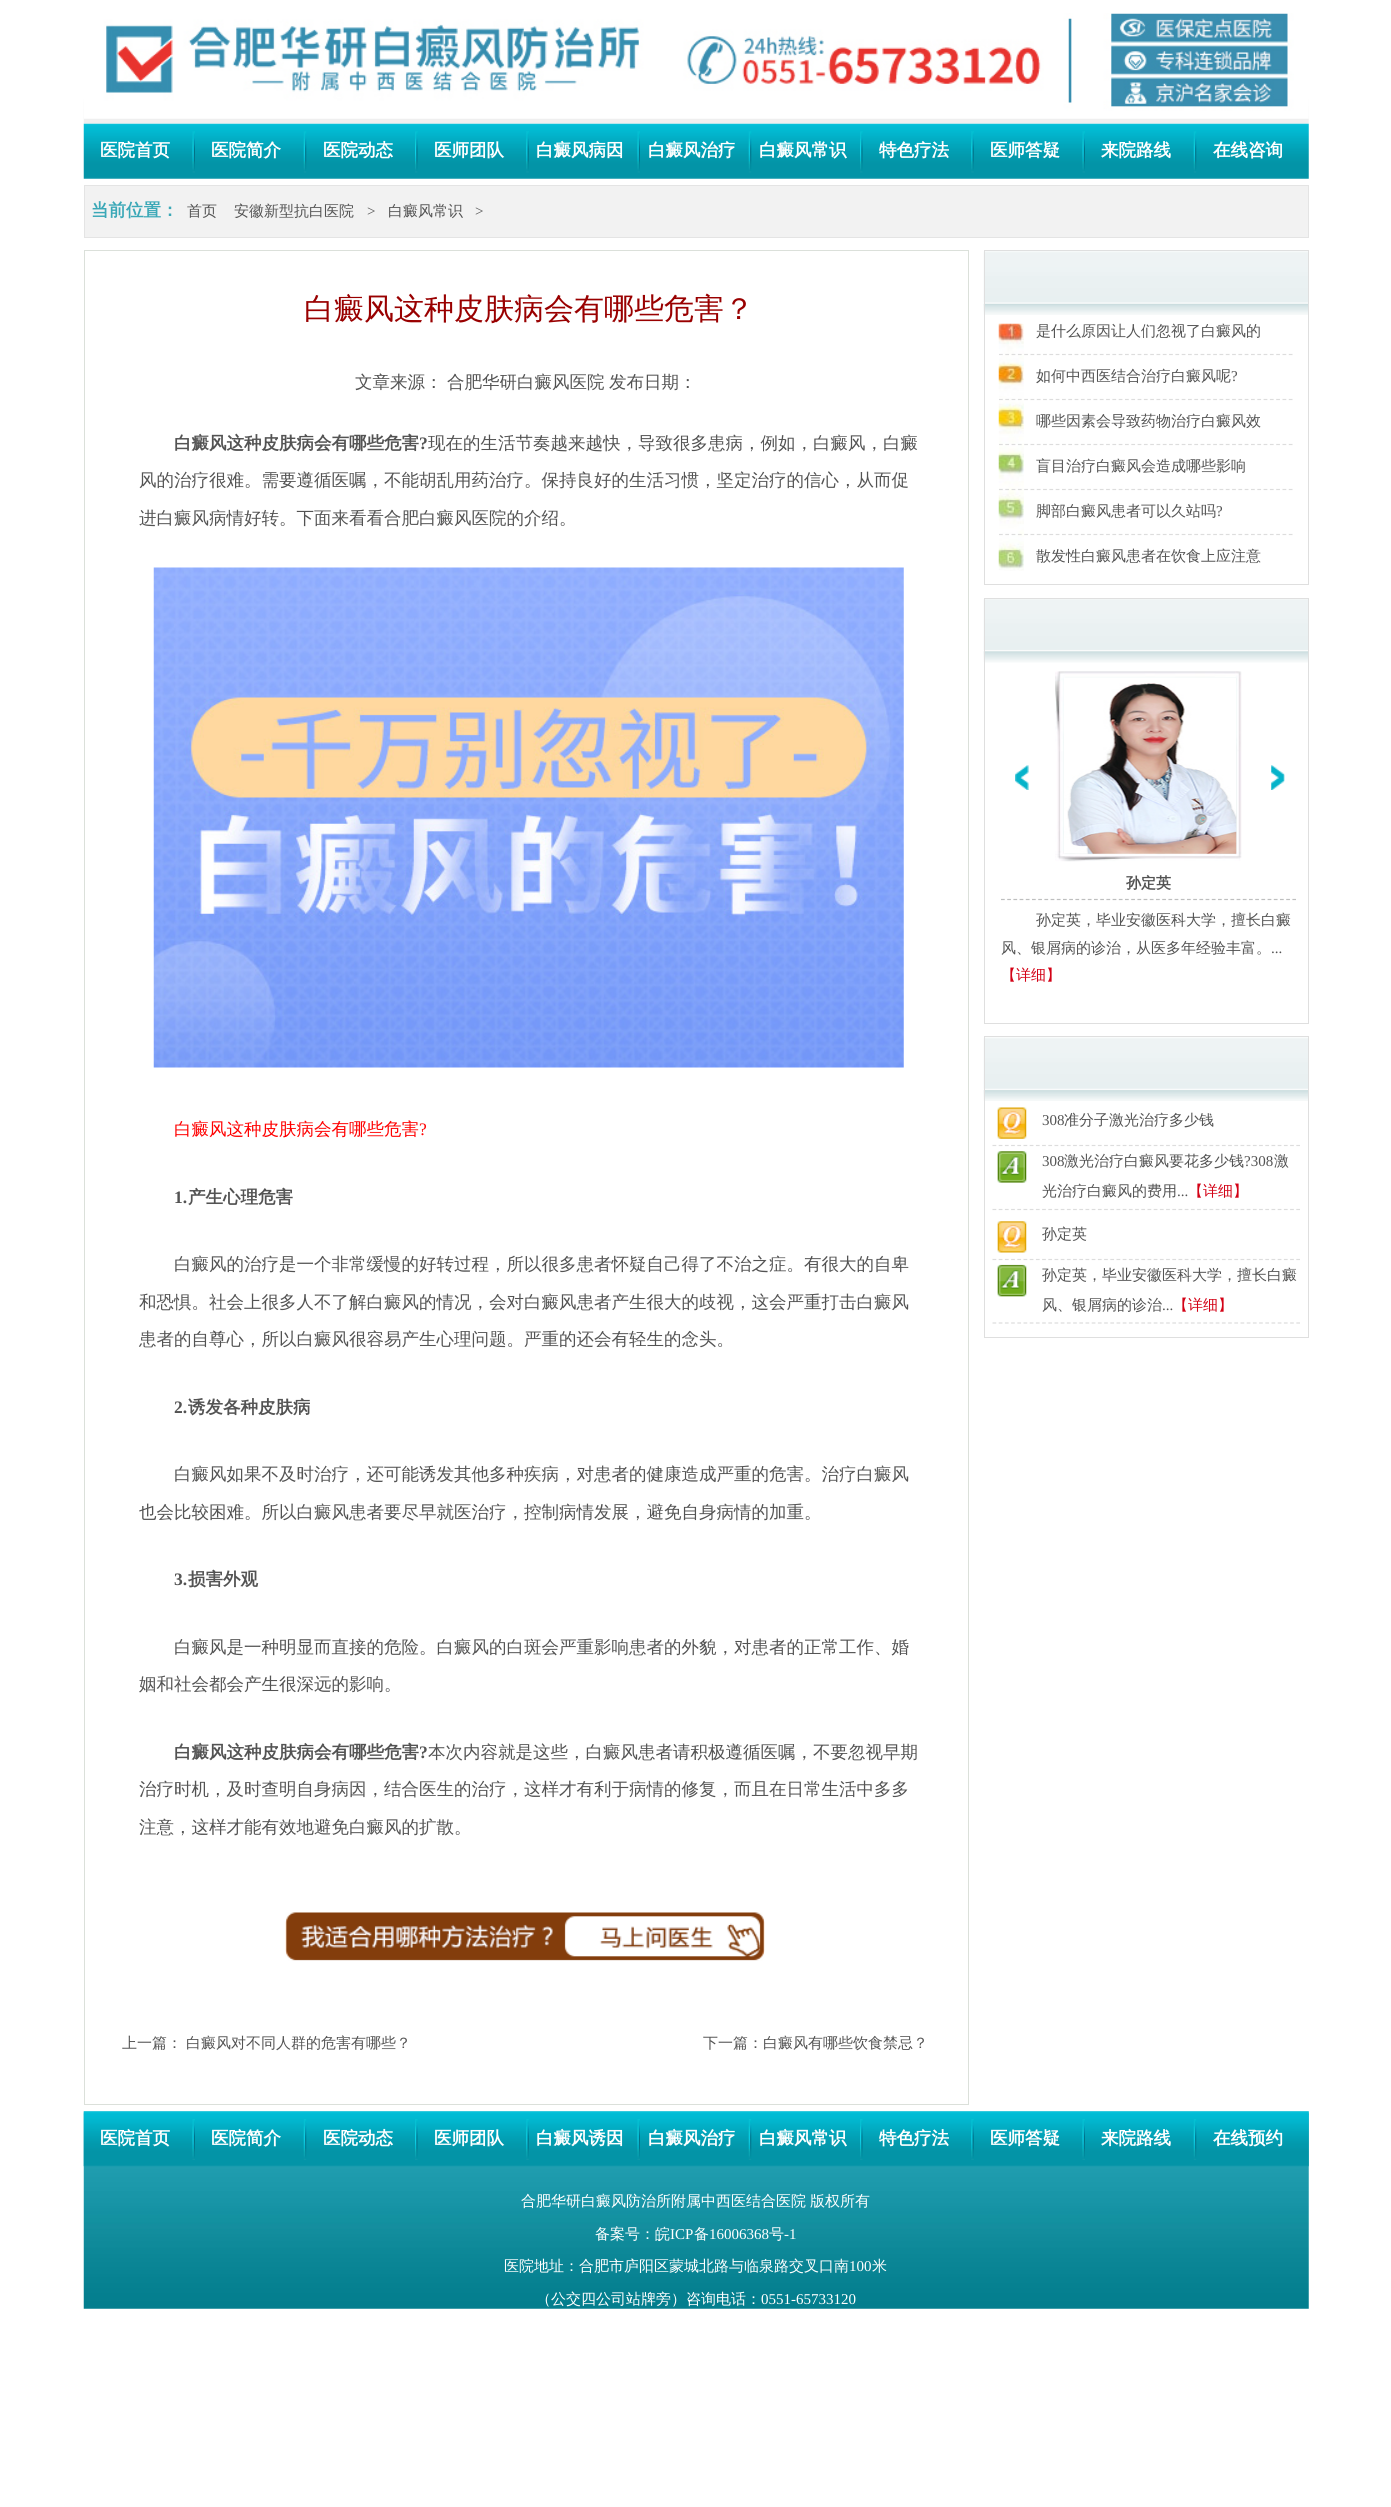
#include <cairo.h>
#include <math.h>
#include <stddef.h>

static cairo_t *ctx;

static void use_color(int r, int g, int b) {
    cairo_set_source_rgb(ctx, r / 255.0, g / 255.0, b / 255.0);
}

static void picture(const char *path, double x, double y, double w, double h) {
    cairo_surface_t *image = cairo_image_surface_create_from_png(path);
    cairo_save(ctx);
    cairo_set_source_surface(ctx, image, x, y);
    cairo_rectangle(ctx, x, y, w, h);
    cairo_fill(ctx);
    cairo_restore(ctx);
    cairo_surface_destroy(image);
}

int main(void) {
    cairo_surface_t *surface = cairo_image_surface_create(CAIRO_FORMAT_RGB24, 1391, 2507);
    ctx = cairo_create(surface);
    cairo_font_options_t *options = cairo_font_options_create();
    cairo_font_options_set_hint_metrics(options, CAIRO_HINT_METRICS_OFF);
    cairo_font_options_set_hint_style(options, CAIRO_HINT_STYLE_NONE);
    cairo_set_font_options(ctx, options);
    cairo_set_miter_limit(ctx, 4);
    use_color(255, 255, 255);
    cairo_paint(ctx);
    picture("img1.png", 83, 99, 1226, 25);
    picture("img2.png", 84, 13, 1225, 106);
    picture("img3.png", 83, 123, 1226, 56);
    picture("img4.png", 192, 131, 3, 42);
    cairo_select_font_face(ctx, "WenQuanYi Zen Hei", CAIRO_FONT_SLANT_NORMAL, CAIRO_FONT_WEIGHT_BOLD);
    cairo_set_font_size(ctx, 17.5);
    use_color(255, 255, 255);
    cairo_move_to(ctx, 100, 156);
    cairo_show_text(ctx, "医院首页");
    picture("img5.png", 303, 131, 4, 42);
    cairo_move_to(ctx, 211, 156);
    cairo_show_text(ctx, "医院简介");
    picture("img6.png", 415, 131, 3, 42);
    cairo_move_to(ctx, 323, 156);
    cairo_show_text(ctx, "医院动态");
    picture("img7.png", 526, 131, 3, 42);
    cairo_move_to(ctx, 434, 156);
    cairo_show_text(ctx, "医师团队");
    picture("img4.png", 637, 131, 3, 42);
    cairo_move_to(ctx, 536, 156);
    cairo_show_text(ctx, "白癜风病因");
    picture("img5.png", 748, 131, 4, 42);
    cairo_move_to(ctx, 648, 156);
    cairo_show_text(ctx, "白癜风治疗");
    picture("img6.png", 860, 131, 3, 42);
    cairo_move_to(ctx, 759, 156);
    cairo_show_text(ctx, "白癜风常识");
    picture("img7.png", 971, 131, 3, 42);
    cairo_move_to(ctx, 879, 156);
    cairo_show_text(ctx, "特色疗法");
    picture("img4.png", 1082, 131, 3, 42);
    cairo_move_to(ctx, 990, 156);
    cairo_show_text(ctx, "医师答疑");
    picture("img5.png", 1193, 131, 4, 42);
    cairo_move_to(ctx, 1101, 156);
    cairo_show_text(ctx, "来院路线");
    cairo_move_to(ctx, 1213, 156);
    cairo_show_text(ctx, "在线咨询");
    use_color(242, 242, 242);
    cairo_rectangle(ctx, 84.5, 185.5, 1224, 52);
    cairo_fill_preserve(ctx);
    use_color(228, 228, 228);
    cairo_set_line_width(ctx, 1);
    cairo_stroke(ctx);
    use_color(59, 168, 183);
    cairo_move_to(ctx, 91, 216);
    cairo_show_text(ctx, "当前位置：");
    cairo_select_font_face(ctx, "WenQuanYi Zen Hei Medium", CAIRO_FONT_SLANT_NORMAL, CAIRO_FONT_WEIGHT_NORMAL);
    cairo_set_font_size(ctx, 15);
    use_color(83, 83, 83);
    cairo_move_to(ctx, 187, 216);
    cairo_show_text(ctx, "首页");
    cairo_move_to(ctx, 234, 216);
    cairo_show_text(ctx, "安徽新型抗白医院");
    cairo_select_font_face(ctx, "Liberation Serif", CAIRO_FONT_SLANT_NORMAL, CAIRO_FONT_WEIGHT_NORMAL);
    cairo_move_to(ctx, 367, 216);
    cairo_show_text(ctx, ">");
    cairo_select_font_face(ctx, "WenQuanYi Zen Hei Medium", CAIRO_FONT_SLANT_NORMAL, CAIRO_FONT_WEIGHT_NORMAL);
    cairo_move_to(ctx, 388, 216);
    cairo_show_text(ctx, "白癜风常识");
    cairo_select_font_face(ctx, "Liberation Serif", CAIRO_FONT_SLANT_NORMAL, CAIRO_FONT_WEIGHT_NORMAL);
    cairo_move_to(ctx, 475, 216);
    cairo_show_text(ctx, ">");
    cairo_rectangle(ctx, 84.5, 250.5, 884, 1854);
    use_color(219, 224, 218);
    cairo_stroke(ctx);
    cairo_select_font_face(ctx, "WenQuanYi Zen Hei Medium", CAIRO_FONT_SLANT_NORMAL, CAIRO_FONT_WEIGHT_NORMAL);
    cairo_set_font_size(ctx, 30);
    use_color(153, 0, 0);
    cairo_move_to(ctx, 304, 319);
    cairo_show_text(ctx, "白癜风这种皮肤病会有哪些危害？");
    cairo_set_font_size(ctx, 17.5);
    use_color(83, 83, 83);
    cairo_move_to(ctx, 355, 388);
    cairo_show_text(ctx, "文章来源：");
    cairo_move_to(ctx, 447, 388);
    cairo_show_text(ctx, "合肥华研白癜风医院");
    cairo_move_to(ctx, 609, 388);
    cairo_show_text(ctx, "发布日期：");
    cairo_select_font_face(ctx, "WenQuanYi Zen Hei", CAIRO_FONT_SLANT_NORMAL, CAIRO_FONT_WEIGHT_BOLD);
    cairo_move_to(ctx, 174, 449);
    cairo_show_text(ctx, "白癜风这种皮肤病会有哪些危害");
    cairo_select_font_face(ctx, "Liberation Serif", CAIRO_FONT_SLANT_NORMAL, CAIRO_FONT_WEIGHT_BOLD);
    cairo_move_to(ctx, 419, 449);
    cairo_show_text(ctx, "?");
    cairo_select_font_face(ctx, "WenQuanYi Zen Hei Medium", CAIRO_FONT_SLANT_NORMAL, CAIRO_FONT_WEIGHT_NORMAL);
    cairo_move_to(ctx, 428, 449);
    cairo_show_text(ctx, "现在的生活节奏越来越快，导致很多患病，例如，白癜风，白癜");
    cairo_move_to(ctx, 139, 486);
    cairo_show_text(ctx, "风的治疗很难。需要遵循医嘱，不能胡乱用药治疗。保持良好的生活习惯，坚定治疗的信心，从而促");
    cairo_move_to(ctx, 139, 524);
    cairo_show_text(ctx, "进白癜风病情好转。下面来看看合肥白癜风医院的介绍。");
    picture("img8.png", 153, 567, 751, 501);
    use_color(255, 0, 0);
    cairo_move_to(ctx, 174, 1135);
    cairo_show_text(ctx, "白癜风这种皮肤病会有哪些危害");
    cairo_select_font_face(ctx, "Liberation Serif", CAIRO_FONT_SLANT_NORMAL, CAIRO_FONT_WEIGHT_NORMAL);
    cairo_move_to(ctx, 419, 1135);
    cairo_show_text(ctx, "?");
    cairo_select_font_face(ctx, "Liberation Serif", CAIRO_FONT_SLANT_NORMAL, CAIRO_FONT_WEIGHT_BOLD);
    use_color(83, 83, 83);
    cairo_move_to(ctx, 174, 1203);
    cairo_show_text(ctx, "1.");
    cairo_select_font_face(ctx, "WenQuanYi Zen Hei", CAIRO_FONT_SLANT_NORMAL, CAIRO_FONT_WEIGHT_BOLD);
    cairo_move_to(ctx, 188, 1203);
    cairo_show_text(ctx, "产生心理危害");
    cairo_select_font_face(ctx, "WenQuanYi Zen Hei Medium", CAIRO_FONT_SLANT_NORMAL, CAIRO_FONT_WEIGHT_NORMAL);
    cairo_move_to(ctx, 174, 1270);
    cairo_show_text(ctx, "白癜风的治疗是一个非常缓慢的好转过程，所以很多患者怀疑自己得了不治之症。有很大的自卑");
    cairo_move_to(ctx, 139, 1308);
    cairo_show_text(ctx, "和恐惧。社会上很多人不了解白癜风的情况，会对白癜风患者产生很大的歧视，这会严重打击白癜风");
    cairo_move_to(ctx, 139, 1345);
    cairo_show_text(ctx, "患者的自尊心，所以白癜风很容易产生心理问题。严重的还会有轻生的念头。");
    cairo_select_font_face(ctx, "Liberation Serif", CAIRO_FONT_SLANT_NORMAL, CAIRO_FONT_WEIGHT_BOLD);
    cairo_move_to(ctx, 174, 1413);
    cairo_show_text(ctx, "2.");
    cairo_select_font_face(ctx, "WenQuanYi Zen Hei", CAIRO_FONT_SLANT_NORMAL, CAIRO_FONT_WEIGHT_BOLD);
    cairo_move_to(ctx, 188, 1413);
    cairo_show_text(ctx, "诱发各种皮肤病");
    cairo_select_font_face(ctx, "WenQuanYi Zen Hei Medium", CAIRO_FONT_SLANT_NORMAL, CAIRO_FONT_WEIGHT_NORMAL);
    cairo_move_to(ctx, 174, 1480);
    cairo_show_text(ctx, "白癜风如果不及时治疗，还可能诱发其他多种疾病，对患者的健康造成严重的危害。治疗白癜风");
    cairo_move_to(ctx, 139, 1518);
    cairo_show_text(ctx, "也会比较困难。所以白癜风患者要尽早就医治疗，控制病情发展，避免自身病情的加重。");
    cairo_select_font_face(ctx, "Liberation Serif", CAIRO_FONT_SLANT_NORMAL, CAIRO_FONT_WEIGHT_BOLD);
    cairo_move_to(ctx, 174, 1585);
    cairo_show_text(ctx, "3.");
    cairo_select_font_face(ctx, "WenQuanYi Zen Hei", CAIRO_FONT_SLANT_NORMAL, CAIRO_FONT_WEIGHT_BOLD);
    cairo_move_to(ctx, 188, 1585);
    cairo_show_text(ctx, "损害外观");
    cairo_select_font_face(ctx, "WenQuanYi Zen Hei Medium", CAIRO_FONT_SLANT_NORMAL, CAIRO_FONT_WEIGHT_NORMAL);
    cairo_move_to(ctx, 174, 1653);
    cairo_show_text(ctx, "白癜风是一种明显而直接的危险。白癜风的白斑会严重影响患者的外貌，对患者的正常工作、婚");
    cairo_move_to(ctx, 139, 1690);
    cairo_show_text(ctx, "姻和社会都会产生很深远的影响。");
    cairo_select_font_face(ctx, "WenQuanYi Zen Hei", CAIRO_FONT_SLANT_NORMAL, CAIRO_FONT_WEIGHT_BOLD);
    cairo_move_to(ctx, 174, 1758);
    cairo_show_text(ctx, "白癜风这种皮肤病会有哪些危害");
    cairo_select_font_face(ctx, "Liberation Serif", CAIRO_FONT_SLANT_NORMAL, CAIRO_FONT_WEIGHT_BOLD);
    cairo_move_to(ctx, 419, 1758);
    cairo_show_text(ctx, "?");
    cairo_select_font_face(ctx, "WenQuanYi Zen Hei Medium", CAIRO_FONT_SLANT_NORMAL, CAIRO_FONT_WEIGHT_NORMAL);
    cairo_move_to(ctx, 428, 1758);
    cairo_show_text(ctx, "本次内容就是这些，白癜风患者请积极遵循医嘱，不要忽视早期");
    cairo_move_to(ctx, 139, 1795);
    cairo_show_text(ctx, "治疗时机，及时查明自身病因，结合医生的治疗，这样才有利于病情的修复，而且在日常生活中多多");
    cairo_move_to(ctx, 139, 1833);
    cairo_show_text(ctx, "注意，这样才能有效地避免白癜风的扩散。");
    picture("img9.png", 285, 1912, 480, 49);
    cairo_set_font_size(ctx, 15);
    cairo_move_to(ctx, 122, 2048);
    cairo_show_text(ctx, "上一篇：");
    cairo_move_to(ctx, 186, 2048);
    cairo_show_text(ctx, "白癜风对不同人群的危害有哪些？");
    cairo_move_to(ctx, 703, 2048);
    cairo_show_text(ctx, "下一篇：白癜风有哪些饮食禁忌？");
    picture("img10.png", 983, 251, 325, 64);
    cairo_rectangle(ctx, 984.5, 250.5, 324, 334);
    use_color(223, 223, 223);
    cairo_stroke(ctx);
    picture("img11.png", 998, 323, 26, 248);
    cairo_new_path(ctx);
    cairo_move_to(ctx, 999, 354.5);
    cairo_line_to(ctx, 1292.5, 354.5);
    use_color(221, 221, 221);
    cairo_set_line_width(ctx, 1.2);
    cairo_set_dash(ctx, (double[]){3.75, 2.55}, 2, 0);
    cairo_stroke(ctx);
    use_color(83, 83, 83);
    cairo_move_to(ctx, 1036, 336);
    cairo_show_text(ctx, "是什么原因让人们忽视了白癜风的");
    cairo_new_path(ctx);
    cairo_move_to(ctx, 999, 399.5);
    cairo_line_to(ctx, 1292.5, 399.5);
    use_color(221, 221, 221);
    cairo_stroke(ctx);
    use_color(83, 83, 83);
    cairo_move_to(ctx, 1036, 381);
    cairo_show_text(ctx, "如何中西医结合治疗白癜风呢");
    cairo_select_font_face(ctx, "Liberation Serif", CAIRO_FONT_SLANT_NORMAL, CAIRO_FONT_WEIGHT_NORMAL);
    cairo_move_to(ctx, 1231, 381);
    cairo_show_text(ctx, "?");
    cairo_new_path(ctx);
    cairo_move_to(ctx, 999, 444.5);
    cairo_line_to(ctx, 1292.5, 444.5);
    use_color(221, 221, 221);
    cairo_stroke(ctx);
    cairo_select_font_face(ctx, "WenQuanYi Zen Hei Medium", CAIRO_FONT_SLANT_NORMAL, CAIRO_FONT_WEIGHT_NORMAL);
    use_color(83, 83, 83);
    cairo_move_to(ctx, 1036, 426);
    cairo_show_text(ctx, "哪些因素会导致药物治疗白癜风效");
    cairo_new_path(ctx);
    cairo_move_to(ctx, 999, 489.5);
    cairo_line_to(ctx, 1292.5, 489.5);
    use_color(221, 221, 221);
    cairo_stroke(ctx);
    use_color(83, 83, 83);
    cairo_move_to(ctx, 1036, 471);
    cairo_show_text(ctx, "盲目治疗白癜风会造成哪些影响");
    cairo_new_path(ctx);
    cairo_move_to(ctx, 999, 534.5);
    cairo_line_to(ctx, 1292.5, 534.5);
    use_color(221, 221, 221);
    cairo_stroke(ctx);
    use_color(83, 83, 83);
    cairo_move_to(ctx, 1036, 516);
    cairo_show_text(ctx, "脚部白癜风患者可以久站吗");
    cairo_select_font_face(ctx, "Liberation Serif", CAIRO_FONT_SLANT_NORMAL, CAIRO_FONT_WEIGHT_NORMAL);
    cairo_move_to(ctx, 1216, 516);
    cairo_show_text(ctx, "?");
    cairo_select_font_face(ctx, "WenQuanYi Zen Hei Medium", CAIRO_FONT_SLANT_NORMAL, CAIRO_FONT_WEIGHT_NORMAL);
    cairo_move_to(ctx, 1036, 561);
    cairo_show_text(ctx, "散发性白癜风患者在饮食上应注意");
    picture("img12.png", 983, 599, 325, 64);
    cairo_rectangle(ctx, 984.5, 598.5, 324, 425);
    use_color(223, 223, 223);
    cairo_set_line_width(ctx, 1);
    cairo_set_dash(ctx, NULL, 0, 0);
    cairo_stroke(ctx);
    picture("img13.png", 1015, 765, 14, 25);
    picture("img14.png", 1271, 765, 14, 25);
    picture("img15.png", 1055, 671, 187, 191);
    picture("img16.png", 1064, 677, 173, 177);
    cairo_select_font_face(ctx, "WenQuanYi Zen Hei", CAIRO_FONT_SLANT_NORMAL, CAIRO_FONT_WEIGHT_BOLD);
    use_color(83, 83, 83);
    cairo_move_to(ctx, 1126, 888);
    cairo_show_text(ctx, "孙定英");
    cairo_new_path(ctx);
    cairo_move_to(ctx, 1001, 899.5);
    cairo_line_to(ctx, 1296, 899.5);
    use_color(190, 191, 191);
    cairo_set_line_width(ctx, 1.2);
    cairo_set_dash(ctx, (double[]){3.75, 2.45}, 2, 0);
    cairo_stroke(ctx);
    cairo_select_font_face(ctx, "WenQuanYi Zen Hei Medium", CAIRO_FONT_SLANT_NORMAL, CAIRO_FONT_WEIGHT_NORMAL);
    use_color(83, 83, 83);
    cairo_move_to(ctx, 1036, 925);
    cairo_show_text(ctx, "孙定英，毕业安徽医科大学，擅长白癜");
    cairo_move_to(ctx, 1001, 953);
    cairo_show_text(ctx, "风、银屑病的诊治，从医多年经验丰富。");
    cairo_select_font_face(ctx, "Liberation Serif", CAIRO_FONT_SLANT_NORMAL, CAIRO_FONT_WEIGHT_NORMAL);
    cairo_move_to(ctx, 1271, 953);
    cairo_show_text(ctx, "...");
    cairo_select_font_face(ctx, "WenQuanYi Zen Hei Medium", CAIRO_FONT_SLANT_NORMAL, CAIRO_FONT_WEIGHT_NORMAL);
    use_color(211, 2, 22);
    cairo_move_to(ctx, 1001, 980);
    cairo_show_text(ctx, "【详细】");
    picture("img17.png", 983, 1037, 325, 64);
    cairo_rectangle(ctx, 984.5, 1036.5, 324, 301);
    use_color(223, 223, 223);
    cairo_set_line_width(ctx, 1);
    cairo_set_dash(ctx, NULL, 0, 0);
    cairo_stroke(ctx);
    picture("img18.png", 997, 1107, 30, 32);
    cairo_new_path(ctx);
    cairo_move_to(ctx, 992.5, 1145.5);
    cairo_line_to(ctx, 1300, 1145.5);
    use_color(221, 221, 221);
    cairo_set_line_width(ctx, 1.2);
    cairo_set_dash(ctx, (double[]){3.75, 2.45}, 2, 0);
    cairo_stroke(ctx);
    cairo_select_font_face(ctx, "Liberation Serif", CAIRO_FONT_SLANT_NORMAL, CAIRO_FONT_WEIGHT_NORMAL);
    use_color(83, 83, 83);
    cairo_move_to(ctx, 1042, 1125);
    cairo_show_text(ctx, "308");
    cairo_select_font_face(ctx, "WenQuanYi Zen Hei Medium", CAIRO_FONT_SLANT_NORMAL, CAIRO_FONT_WEIGHT_NORMAL);
    cairo_move_to(ctx, 1064, 1125);
    cairo_show_text(ctx, "准分子激光治疗多少钱");
    picture("img19.png", 997, 1151, 30, 32);
    cairo_new_path(ctx);
    cairo_move_to(ctx, 992.5, 1209.5);
    cairo_line_to(ctx, 1300, 1209.5);
    use_color(221, 221, 221);
    cairo_stroke(ctx);
    cairo_select_font_face(ctx, "Liberation Serif", CAIRO_FONT_SLANT_NORMAL, CAIRO_FONT_WEIGHT_NORMAL);
    use_color(83, 83, 83);
    cairo_move_to(ctx, 1042, 1166);
    cairo_show_text(ctx, "308");
    cairo_select_font_face(ctx, "WenQuanYi Zen Hei Medium", CAIRO_FONT_SLANT_NORMAL, CAIRO_FONT_WEIGHT_NORMAL);
    cairo_move_to(ctx, 1064, 1166);
    cairo_show_text(ctx, "激光治疗白癜风要花多少钱");
    cairo_select_font_face(ctx, "Liberation Serif", CAIRO_FONT_SLANT_NORMAL, CAIRO_FONT_WEIGHT_NORMAL);
    cairo_move_to(ctx, 1244, 1166);
    cairo_show_text(ctx, "?308");
    cairo_select_font_face(ctx, "WenQuanYi Zen Hei Medium", CAIRO_FONT_SLANT_NORMAL, CAIRO_FONT_WEIGHT_NORMAL);
    cairo_move_to(ctx, 1274, 1166);
    cairo_show_text(ctx, "激");
    cairo_move_to(ctx, 1042, 1196);
    cairo_show_text(ctx, "光治疗白癜风的费用");
    cairo_select_font_face(ctx, "Liberation Serif", CAIRO_FONT_SLANT_NORMAL, CAIRO_FONT_WEIGHT_NORMAL);
    cairo_move_to(ctx, 1177, 1196);
    cairo_show_text(ctx, "...");
    cairo_select_font_face(ctx, "WenQuanYi Zen Hei Medium", CAIRO_FONT_SLANT_NORMAL, CAIRO_FONT_WEIGHT_NORMAL);
    use_color(211, 2, 22);
    cairo_move_to(ctx, 1188, 1196);
    cairo_show_text(ctx, "【详细】");
    picture("img20.png", 997, 1221, 30, 32);
    cairo_new_path(ctx);
    cairo_move_to(ctx, 992.5, 1259.5);
    cairo_line_to(ctx, 1300, 1259.5);
    use_color(221, 221, 221);
    cairo_stroke(ctx);
    use_color(83, 83, 83);
    cairo_move_to(ctx, 1042, 1239);
    cairo_show_text(ctx, "孙定英");
    picture("img21.png", 997, 1264, 30, 33);
    cairo_new_path(ctx);
    cairo_move_to(ctx, 992.5, 1323);
    cairo_line_to(ctx, 1300, 1323);
    use_color(221, 221, 221);
    cairo_stroke(ctx);
    use_color(83, 83, 83);
    cairo_move_to(ctx, 1042, 1280);
    cairo_show_text(ctx, "孙定英，毕业安徽医科大学，擅长白癜");
    cairo_move_to(ctx, 1042, 1310);
    cairo_show_text(ctx, "风、银屑病的诊治");
    cairo_select_font_face(ctx, "Liberation Serif", CAIRO_FONT_SLANT_NORMAL, CAIRO_FONT_WEIGHT_NORMAL);
    cairo_move_to(ctx, 1162, 1310);
    cairo_show_text(ctx, "...");
    cairo_select_font_face(ctx, "WenQuanYi Zen Hei Medium", CAIRO_FONT_SLANT_NORMAL, CAIRO_FONT_WEIGHT_NORMAL);
    use_color(211, 2, 22);
    cairo_move_to(ctx, 1173, 1310);
    cairo_show_text(ctx, "【详细】");
    picture("img22.png", 83, 2111, 1226, 198);
    picture("img23.png", 83, 2111, 1226, 56);
    picture("img24.png", 192, 2119, 3, 41);
    cairo_select_font_face(ctx, "WenQuanYi Zen Hei", CAIRO_FONT_SLANT_NORMAL, CAIRO_FONT_WEIGHT_BOLD);
    cairo_set_font_size(ctx, 17.5);
    use_color(255, 255, 255);
    cairo_move_to(ctx, 100, 2144);
    cairo_show_text(ctx, "医院首页");
    picture("img25.png", 303, 2119, 4, 41);
    cairo_move_to(ctx, 211, 2144);
    cairo_show_text(ctx, "医院简介");
    picture("img26.png", 415, 2119, 3, 41);
    cairo_move_to(ctx, 323, 2144);
    cairo_show_text(ctx, "医院动态");
    picture("img27.png", 526, 2119, 3, 41);
    cairo_move_to(ctx, 434, 2144);
    cairo_show_text(ctx, "医师团队");
    picture("img24.png", 637, 2119, 3, 41);
    cairo_move_to(ctx, 536, 2144);
    cairo_show_text(ctx, "白癜风诱因");
    picture("img25.png", 748, 2119, 4, 41);
    cairo_move_to(ctx, 648, 2144);
    cairo_show_text(ctx, "白癜风治疗");
    picture("img26.png", 860, 2119, 3, 41);
    cairo_move_to(ctx, 759, 2144);
    cairo_show_text(ctx, "白癜风常识");
    picture("img27.png", 971, 2119, 3, 41);
    cairo_move_to(ctx, 879, 2144);
    cairo_show_text(ctx, "特色疗法");
    picture("img24.png", 1082, 2119, 3, 41);
    cairo_move_to(ctx, 990, 2144);
    cairo_show_text(ctx, "医师答疑");
    picture("img25.png", 1193, 2119, 4, 41);
    cairo_move_to(ctx, 1101, 2144);
    cairo_show_text(ctx, "来院路线");
    cairo_move_to(ctx, 1213, 2144);
    cairo_show_text(ctx, "在线预约");
    cairo_select_font_face(ctx, "WenQuanYi Zen Hei Medium", CAIRO_FONT_SLANT_NORMAL, CAIRO_FONT_WEIGHT_NORMAL);
    cairo_set_font_size(ctx, 15);
    cairo_move_to(ctx, 521, 2206);
    cairo_show_text(ctx, "合肥华研白癜风防治所附属中西医结合医院");
    cairo_move_to(ctx, 810, 2206);
    cairo_show_text(ctx, "版权所有");
    cairo_move_to(ctx, 595, 2239);
    cairo_show_text(ctx, "备案号：皖");
    cairo_select_font_face(ctx, "Liberation Serif", CAIRO_FONT_SLANT_NORMAL, CAIRO_FONT_WEIGHT_NORMAL);
    cairo_move_to(ctx, 670, 2239);
    cairo_show_text(ctx, "ICP");
    cairo_select_font_face(ctx, "WenQuanYi Zen Hei Medium", CAIRO_FONT_SLANT_NORMAL, CAIRO_FONT_WEIGHT_NORMAL);
    cairo_move_to(ctx, 694, 2239);
    cairo_show_text(ctx, "备");
    cairo_select_font_face(ctx, "Liberation Serif", CAIRO_FONT_SLANT_NORMAL, CAIRO_FONT_WEIGHT_NORMAL);
    cairo_move_to(ctx, 709, 2239);
    cairo_show_text(ctx, "16006368");
    cairo_select_font_face(ctx, "WenQuanYi Zen Hei Medium", CAIRO_FONT_SLANT_NORMAL, CAIRO_FONT_WEIGHT_NORMAL);
    cairo_move_to(ctx, 769, 2239);
    cairo_show_text(ctx, "号");
    cairo_select_font_face(ctx, "Liberation Serif", CAIRO_FONT_SLANT_NORMAL, CAIRO_FONT_WEIGHT_NORMAL);
    cairo_move_to(ctx, 784, 2239);
    cairo_show_text(ctx, "-1");
    cairo_select_font_face(ctx, "WenQuanYi Zen Hei Medium", CAIRO_FONT_SLANT_NORMAL, CAIRO_FONT_WEIGHT_NORMAL);
    cairo_move_to(ctx, 504, 2271);
    cairo_show_text(ctx, "医院地址：合肥市庐阳区蒙城北路与临泉路交叉口南");
    cairo_select_font_face(ctx, "Liberation Serif", CAIRO_FONT_SLANT_NORMAL, CAIRO_FONT_WEIGHT_NORMAL);
    cairo_move_to(ctx, 849, 2271);
    cairo_show_text(ctx, "100");
    cairo_select_font_face(ctx, "WenQuanYi Zen Hei Medium", CAIRO_FONT_SLANT_NORMAL, CAIRO_FONT_WEIGHT_NORMAL);
    cairo_move_to(ctx, 872, 2271);
    cairo_show_text(ctx, "米");
    cairo_move_to(ctx, 536, 2304);
    cairo_show_text(ctx, "（公交四公司站牌旁）咨询电话：");
    cairo_select_font_face(ctx, "Liberation Serif", CAIRO_FONT_SLANT_NORMAL, CAIRO_FONT_WEIGHT_NORMAL);
    cairo_move_to(ctx, 761, 2304);
    cairo_show_text(ctx, "0551-65733120");
    cairo_surface_write_to_png(surface, "result.png");
    cairo_font_options_destroy(options);
    cairo_destroy(ctx);
    cairo_surface_destroy(surface);
    return 0;
}
